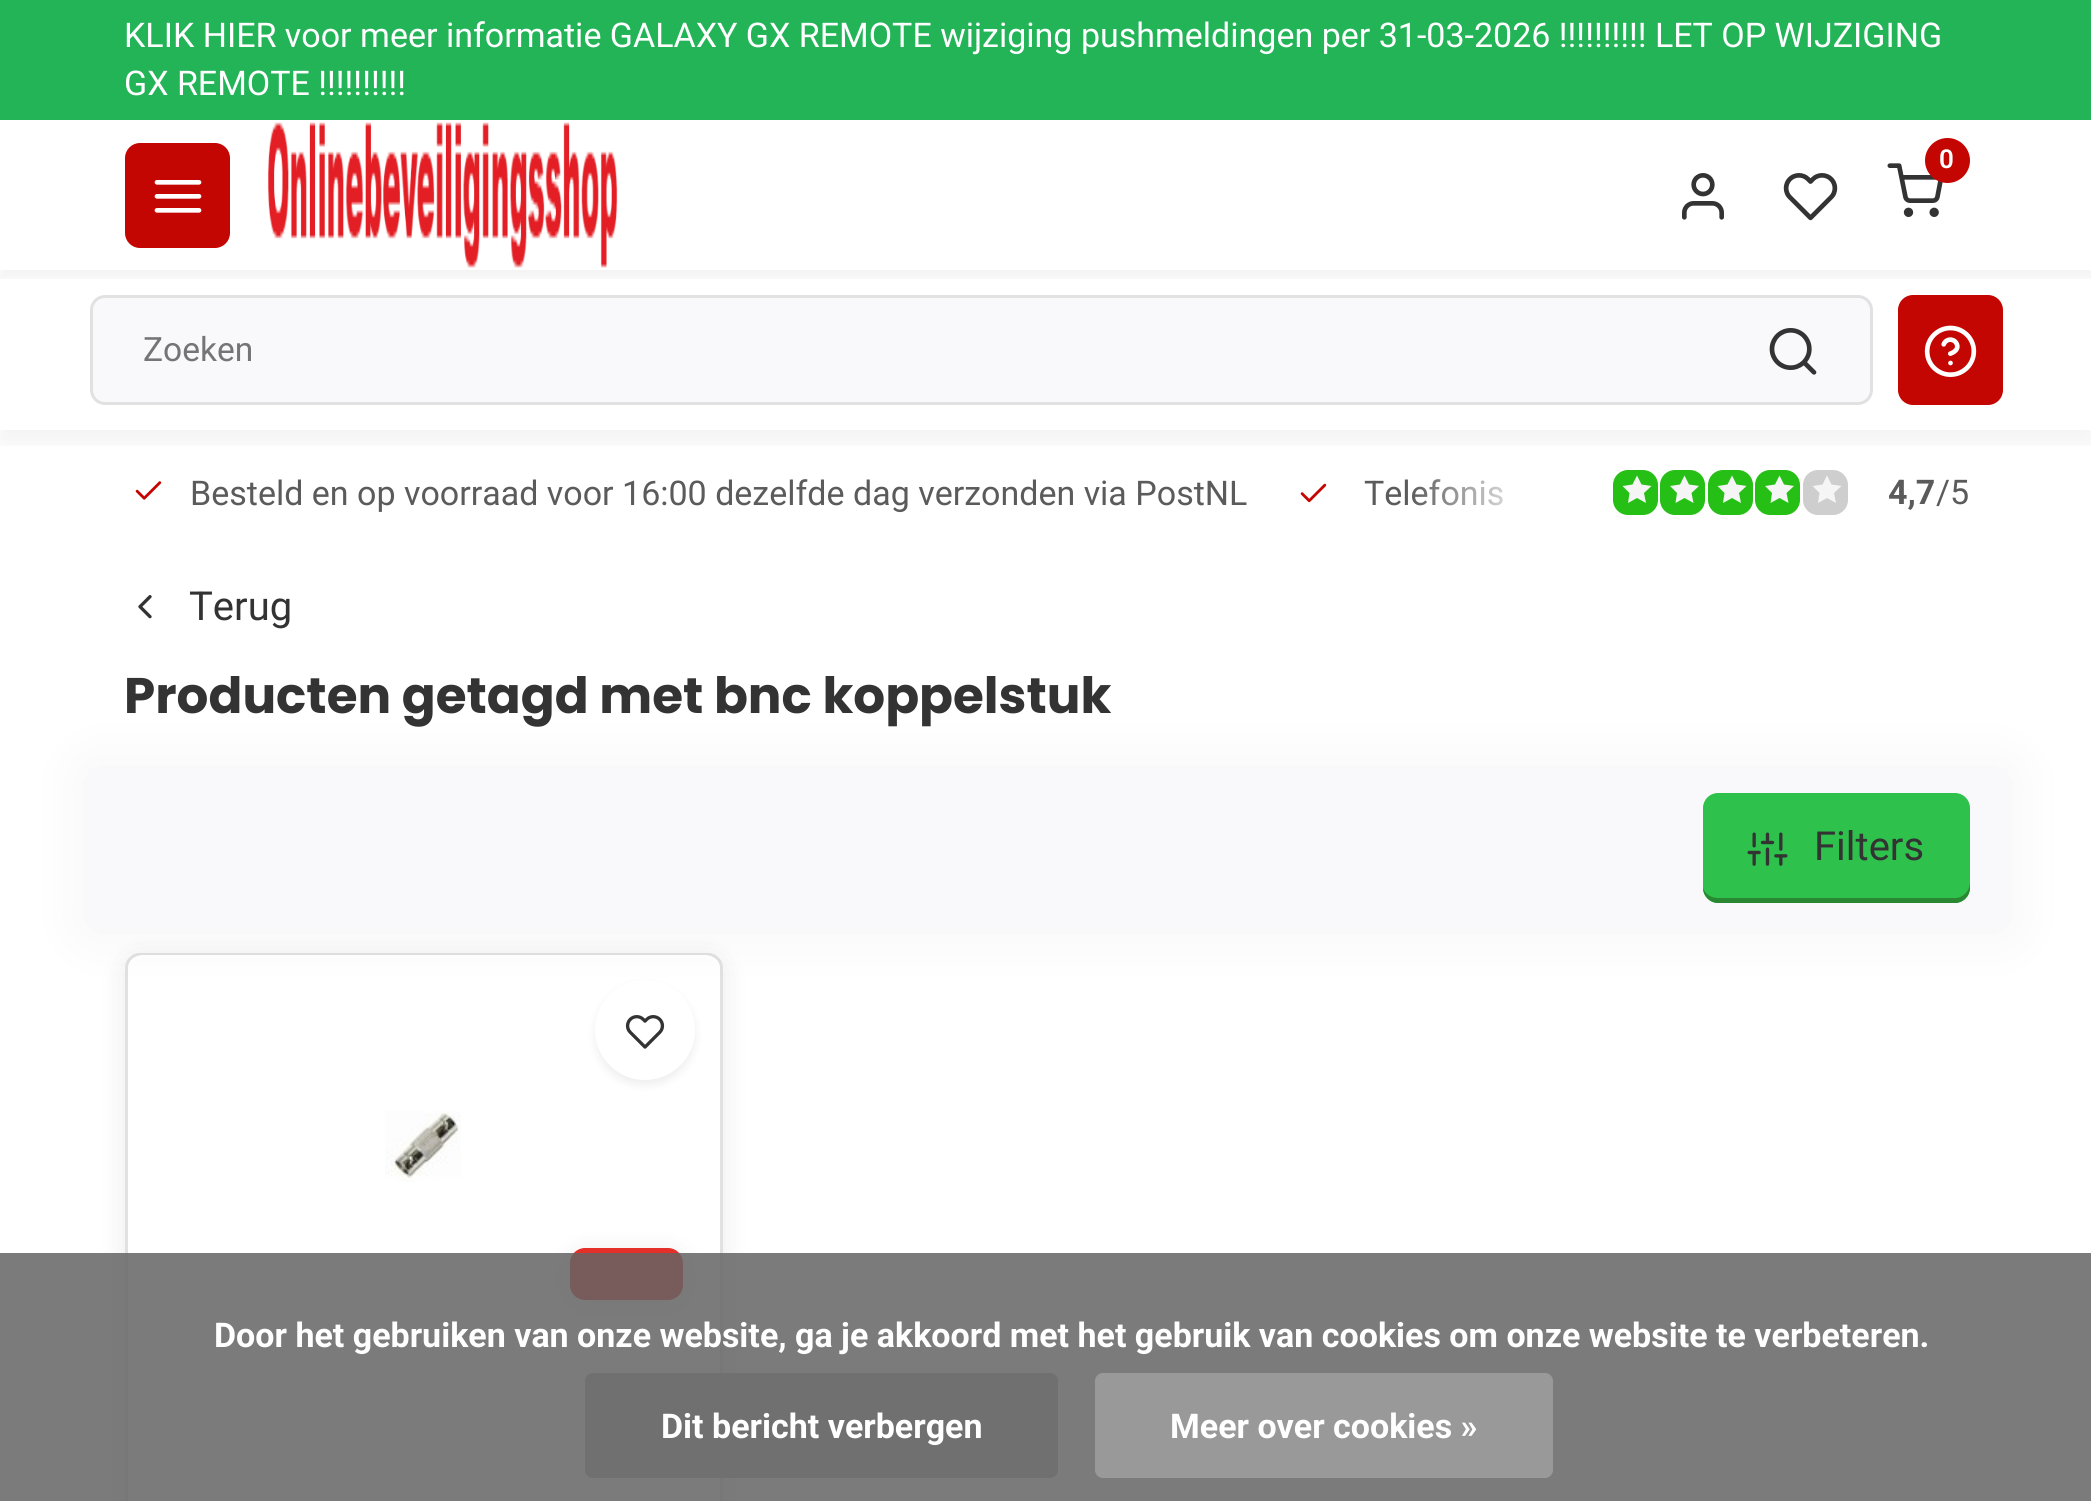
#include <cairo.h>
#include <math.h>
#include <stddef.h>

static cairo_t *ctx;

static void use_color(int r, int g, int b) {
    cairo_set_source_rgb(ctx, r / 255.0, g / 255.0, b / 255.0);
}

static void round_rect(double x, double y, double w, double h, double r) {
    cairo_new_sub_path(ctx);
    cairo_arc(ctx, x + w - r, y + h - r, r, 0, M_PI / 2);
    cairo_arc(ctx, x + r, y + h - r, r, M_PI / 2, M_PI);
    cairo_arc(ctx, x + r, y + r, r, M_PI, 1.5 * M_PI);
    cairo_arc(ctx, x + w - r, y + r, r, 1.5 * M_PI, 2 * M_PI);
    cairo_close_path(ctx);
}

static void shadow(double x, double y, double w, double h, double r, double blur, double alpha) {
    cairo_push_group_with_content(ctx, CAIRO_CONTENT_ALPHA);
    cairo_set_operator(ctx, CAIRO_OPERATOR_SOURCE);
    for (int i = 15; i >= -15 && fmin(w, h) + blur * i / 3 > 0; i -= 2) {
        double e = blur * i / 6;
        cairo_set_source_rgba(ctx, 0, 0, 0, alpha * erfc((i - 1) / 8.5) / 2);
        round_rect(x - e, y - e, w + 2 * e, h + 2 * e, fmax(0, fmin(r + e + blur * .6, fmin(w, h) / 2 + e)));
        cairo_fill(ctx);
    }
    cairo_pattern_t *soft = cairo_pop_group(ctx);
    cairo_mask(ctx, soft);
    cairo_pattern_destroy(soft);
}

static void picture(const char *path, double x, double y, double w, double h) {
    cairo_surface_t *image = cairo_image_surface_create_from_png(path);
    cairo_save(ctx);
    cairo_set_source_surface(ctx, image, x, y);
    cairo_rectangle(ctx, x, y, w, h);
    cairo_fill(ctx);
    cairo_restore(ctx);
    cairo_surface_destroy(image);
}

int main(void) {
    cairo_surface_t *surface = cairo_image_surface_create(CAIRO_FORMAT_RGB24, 2091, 1501);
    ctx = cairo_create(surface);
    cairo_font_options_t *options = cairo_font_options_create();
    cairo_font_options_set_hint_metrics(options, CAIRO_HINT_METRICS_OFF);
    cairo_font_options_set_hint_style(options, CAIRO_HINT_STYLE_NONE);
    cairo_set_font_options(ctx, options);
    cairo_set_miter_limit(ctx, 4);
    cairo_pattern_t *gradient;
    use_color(255, 255, 255);
    cairo_paint(ctx);
    use_color(35, 180, 88);
    cairo_rectangle(ctx, 0, 0, 2091, 120);
    cairo_fill(ctx);
    cairo_select_font_face(ctx, "Roboto", CAIRO_FONT_SLANT_NORMAL, CAIRO_FONT_WEIGHT_NORMAL);
    cairo_set_font_size(ctx, 34);
    use_color(255, 255, 255);
    cairo_move_to(ctx, 124, 47);
    cairo_show_text(ctx, "KLIK HIER voor meer informatie GALAXY GX REMOTE wijziging pushmeldingen per 31-03-2026 !!!!!!!!!! LET OP WIJZIGING");
    cairo_move_to(ctx, 124, 95);
    cairo_show_text(ctx, "GX REMOTE !!!!!!!!!!");
    picture("img8.png", 135, 481, 27, 19);
    use_color(92, 91, 91);
    cairo_move_to(ctx, 1364, 505);
    cairo_show_text(ctx, "Telefonis");
    gradient = cairo_pattern_create_linear(1410, 493, 1538, 493);
    cairo_pattern_add_color_stop_rgba(gradient, 0, 1, 1, 1, 0);
    cairo_pattern_add_color_stop_rgba(gradient, 1, 1, 1, 1, 1);
    cairo_set_source(ctx, gradient);
    cairo_pattern_destroy(gradient);
    cairo_rectangle(ctx, 1413, 479, 90, 27);
    cairo_fill(ctx);
    use_color(38, 191, 21);
    round_rect(1613, 470, 45, 45, 15);
    cairo_fill(ctx);
    use_color(245, 245, 245);
    cairo_new_path(ctx);
    cairo_move_to(ctx, 1651.5, 486);
    cairo_line_to(ctx, 1641.5, 484.5);
    cairo_line_to(ctx, 1637, 475.5);
    cairo_line_to(ctx, 1632.5, 484.5);
    cairo_line_to(ctx, 1622.5, 486);
    cairo_line_to(ctx, 1629.5, 493);
    cairo_line_to(ctx, 1628, 503);
    cairo_line_to(ctx, 1637, 498);
    cairo_line_to(ctx, 1646, 503);
    cairo_line_to(ctx, 1644, 493);
    cairo_close_path(ctx);
    cairo_fill(ctx);
    use_color(38, 191, 21);
    round_rect(1660, 470, 45, 45, 15);
    cairo_fill(ctx);
    use_color(245, 245, 245);
    cairo_new_path(ctx);
    cairo_move_to(ctx, 1699, 486);
    cairo_line_to(ctx, 1689, 484.5);
    cairo_line_to(ctx, 1684.5, 475.5);
    cairo_line_to(ctx, 1680, 484.5);
    cairo_line_to(ctx, 1670, 486);
    cairo_line_to(ctx, 1677, 493);
    cairo_line_to(ctx, 1675.5, 503);
    cairo_line_to(ctx, 1684.5, 498);
    cairo_line_to(ctx, 1693.5, 503);
    cairo_line_to(ctx, 1691.5, 493);
    cairo_close_path(ctx);
    cairo_fill(ctx);
    use_color(38, 191, 21);
    round_rect(1708, 470, 45, 45, 15);
    cairo_fill(ctx);
    use_color(245, 245, 245);
    cairo_new_path(ctx);
    cairo_move_to(ctx, 1746.5, 486);
    cairo_line_to(ctx, 1736.5, 484.5);
    cairo_line_to(ctx, 1732, 475.5);
    cairo_line_to(ctx, 1727.5, 484.5);
    cairo_line_to(ctx, 1717.5, 486);
    cairo_line_to(ctx, 1724.5, 493);
    cairo_line_to(ctx, 1723, 503);
    cairo_line_to(ctx, 1732, 498);
    cairo_line_to(ctx, 1741, 503);
    cairo_line_to(ctx, 1739, 493);
    cairo_close_path(ctx);
    cairo_fill(ctx);
    use_color(38, 191, 21);
    round_rect(1755, 470, 45, 45, 15);
    cairo_fill(ctx);
    use_color(245, 245, 245);
    cairo_new_path(ctx);
    cairo_move_to(ctx, 1794, 486);
    cairo_line_to(ctx, 1784, 484.5);
    cairo_line_to(ctx, 1779.5, 475.5);
    cairo_line_to(ctx, 1775, 484.5);
    cairo_line_to(ctx, 1765, 486);
    cairo_line_to(ctx, 1772, 493);
    cairo_line_to(ctx, 1770.5, 503);
    cairo_line_to(ctx, 1779.5, 498);
    cairo_line_to(ctx, 1788.5, 503);
    cairo_line_to(ctx, 1786.5, 493);
    cairo_close_path(ctx);
    cairo_fill(ctx);
    use_color(206, 206, 206);
    round_rect(1803, 470, 45, 45, 15);
    cairo_fill(ctx);
    use_color(245, 245, 245);
    cairo_new_path(ctx);
    cairo_move_to(ctx, 1841.5, 486);
    cairo_line_to(ctx, 1831.5, 484.5);
    cairo_line_to(ctx, 1827, 475.5);
    cairo_line_to(ctx, 1822.5, 484.5);
    cairo_line_to(ctx, 1812.5, 486);
    cairo_line_to(ctx, 1819.5, 493);
    cairo_line_to(ctx, 1818, 503);
    cairo_line_to(ctx, 1827, 498);
    cairo_line_to(ctx, 1836, 503);
    cairo_line_to(ctx, 1834, 493);
    cairo_close_path(ctx);
    cairo_fill(ctx);
    cairo_save(ctx);
    cairo_rectangle(ctx, 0, 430, 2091, 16);
    cairo_clip(ctx);
    use_color(0, 0, 0);
    shadow(0, 133, 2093, 310, 0, 12.5, 0.05);
    cairo_restore(ctx);
    cairo_save(ctx);
    cairo_rectangle(ctx, 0, 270, 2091, 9);
    cairo_clip(ctx);
    use_color(0, 0, 0);
    shadow(0, 128, 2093, 150, 0, 5, 0.05);
    cairo_restore(ctx);
    use_color(196, 6, 2);
    round_rect(125, 143, 105, 105, 15);
    cairo_fill(ctx);
    picture("img1.png", 154, 180, 48, 33);
    picture("img2.png", 268, 122, 350, 146);
    picture("img3.png", 1887, 163, 56, 54);
    cairo_arc(ctx, 1947.5, 160.5, 22.5, 0, 2 * M_PI);
    cairo_fill(ctx);
    cairo_select_font_face(ctx, "Roboto SemiBold", CAIRO_FONT_SLANT_NORMAL, CAIRO_FONT_WEIGHT_NORMAL);
    cairo_set_font_size(ctx, 26);
    use_color(255, 255, 255);
    cairo_move_to(ctx, 1939, 168);
    cairo_show_text(ctx, "0");
    picture("img4.png", 1682, 173, 42, 47);
    picture("img5.png", 1783, 173, 55, 48);
    use_color(249, 249, 251);
    round_rect(91.5, 296.5, 1780, 107, 13.5);
    cairo_fill_preserve(ctx);
    use_color(225, 225, 225);
    cairo_set_line_width(ctx, 3);
    cairo_stroke(ctx);
    cairo_select_font_face(ctx, "Roboto", CAIRO_FONT_SLANT_NORMAL, CAIRO_FONT_WEIGHT_NORMAL);
    cairo_set_font_size(ctx, 33.5);
    use_color(117, 117, 117);
    cairo_move_to(ctx, 143, 361);
    cairo_show_text(ctx, "Zoeken");
    picture("img6.png", 1769, 328, 48, 47);
    use_color(196, 6, 2);
    round_rect(1898, 295, 105, 110, 15);
    cairo_fill(ctx);
    picture("img7.png", 1924, 325, 53, 52);
    cairo_set_font_size(ctx, 34);
    use_color(92, 91, 91);
    cairo_move_to(ctx, 190, 505);
    cairo_show_text(ctx, "Besteld en op voorraad voor 16:00 dezelfde dag verzonden via PostNL");
    picture("img9.png", 1300, 483, 27, 20);
    cairo_select_font_face(ctx, "Roboto", CAIRO_FONT_SLANT_NORMAL, CAIRO_FONT_WEIGHT_BOLD);
    cairo_move_to(ctx, 1888, 504);
    cairo_show_text(ctx, "4,7");
    cairo_select_font_face(ctx, "Roboto", CAIRO_FONT_SLANT_NORMAL, CAIRO_FONT_WEIGHT_NORMAL);
    cairo_move_to(ctx, 1936, 504);
    cairo_show_text(ctx, "/5");
    picture("img10.png", 138, 595, 14, 24);
    cairo_set_font_size(ctx, 40);
    use_color(51, 51, 51);
    cairo_move_to(ctx, 189, 620);
    cairo_show_text(ctx, "Terug");
    cairo_select_font_face(ctx, "Poppins", CAIRO_FONT_SLANT_NORMAL, CAIRO_FONT_WEIGHT_BOLD);
    cairo_set_font_size(ctx, 50);
    cairo_move_to(ctx, 124, 713);
    cairo_show_text(ctx, "Producten getagd met bnc koppelstuk");
    use_color(0, 0, 0);
    shadow(125, 958, 598, 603, 15, 15, 0.08);
    use_color(255, 255, 255);
    round_rect(126.5, 954.5, 595, 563, 13.5);
    cairo_fill_preserve(ctx);
    use_color(225, 225, 225);
    cairo_stroke(ctx);
    use_color(255, 255, 255);
    cairo_new_path(ctx);
    cairo_move_to(ctx, 143, 955);
    cairo_line_to(ctx, 705, 955);
    cairo_curve_to(ctx, 713.5, 955, 720, 961.5, 720, 970);
    cairo_line_to(ctx, 720, 1330);
    cairo_line_to(ctx, 128, 1330);
    cairo_line_to(ctx, 128, 970);
    cairo_curve_to(ctx, 128, 961.5, 134.5, 955, 143, 955);
    cairo_close_path(ctx);
    cairo_fill(ctx);
    use_color(0, 0, 0);
    shadow(595, 985, 100, 100, 50, 5, 0.07);
    use_color(255, 255, 255);
    cairo_arc(ctx, 645, 1030, 50, 0, 2 * M_PI);
    cairo_fill(ctx);
    picture("img13.png", 625, 1015, 40, 34);
    use_color(0, 0, 0);
    shadow(88, 770, 1920, 160, 0, 31, 0.05);
    use_color(249, 249, 251);
    cairo_rectangle(ctx, 88, 768, 1920, 160);
    cairo_fill(ctx);
    use_color(46, 193, 76);
    round_rect(1703, 793, 267, 110, 15);
    cairo_fill(ctx);
    use_color(41, 136, 49);
    cairo_new_path(ctx);
    cairo_move_to(ctx, 1703, 888);
    cairo_curve_to(ctx, 1703, 896, 1710, 903, 1718, 903);
    cairo_line_to(ctx, 1955, 903);
    cairo_curve_to(ctx, 1963, 903, 1970, 896, 1970, 888);
    cairo_line_to(ctx, 1970, 882);
    cairo_curve_to(ctx, 1970, 891, 1963, 898, 1955, 898);
    cairo_line_to(ctx, 1718, 898);
    cairo_curve_to(ctx, 1711, 898, 1705, 894, 1703, 888);
    cairo_close_path(ctx);
    cairo_fill(ctx);
    picture("img11.png", 1747, 832, 41, 34);
    cairo_select_font_face(ctx, "Roboto", CAIRO_FONT_SLANT_NORMAL, CAIRO_FONT_WEIGHT_NORMAL);
    cairo_set_font_size(ctx, 40);
    use_color(51, 51, 51);
    cairo_move_to(ctx, 1814, 860);
    cairo_show_text(ctx, "Filters");
    picture("img12.png", 385, 1111, 76, 71);
    use_color(0, 0, 0);
    shadow(570, 1253, 113, 52, 15, 15, 0.08);
    use_color(228, 48, 41);
    round_rect(570, 1248, 113, 52, 15);
    cairo_fill(ctx);
    cairo_set_source_rgba(ctx, 0.392, 0.392, 0.392, 0.85);
    cairo_rectangle(ctx, 0, 1253, 2091, 248);
    cairo_fill(ctx);
    cairo_select_font_face(ctx, "Roboto", CAIRO_FONT_SLANT_NORMAL, CAIRO_FONT_WEIGHT_BOLD);
    cairo_set_font_size(ctx, 34);
    use_color(255, 255, 255);
    cairo_move_to(ctx, 214, 1347);
    cairo_show_text(ctx, "Door het gebruiken van onze website, ga je akkoord met het gebruik van cookies om onze website te verbeteren.");
    use_color(112, 112, 112);
    round_rect(585, 1373, 473, 105, 8);
    cairo_fill(ctx);
    use_color(255, 255, 255);
    cairo_move_to(ctx, 661, 1438);
    cairo_show_text(ctx, "Dit bericht verbergen");
    use_color(153, 153, 153);
    round_rect(1095, 1373, 458, 105, 8);
    cairo_fill(ctx);
    use_color(255, 255, 255);
    cairo_move_to(ctx, 1170, 1438);
    cairo_show_text(ctx, "Meer over cookies »");
    cairo_surface_write_to_png(surface, "result.png");
    cairo_font_options_destroy(options);
    cairo_destroy(ctx);
    cairo_surface_destroy(surface);
    return 0;
}
